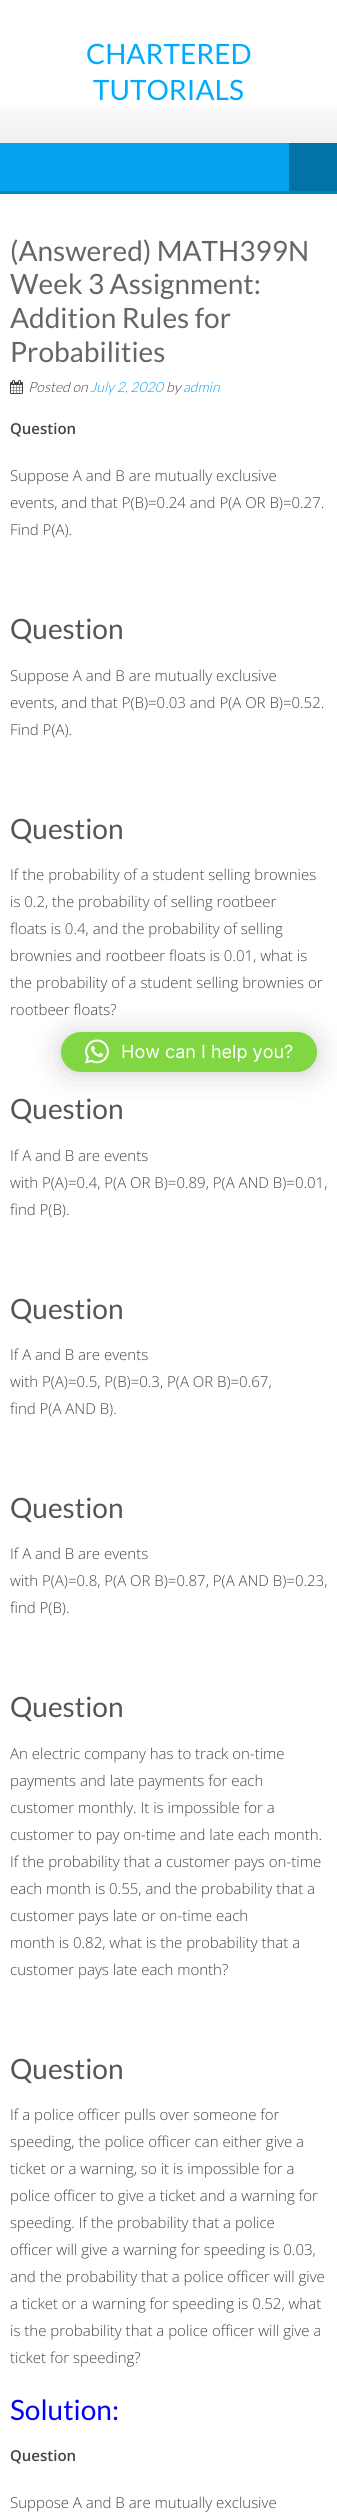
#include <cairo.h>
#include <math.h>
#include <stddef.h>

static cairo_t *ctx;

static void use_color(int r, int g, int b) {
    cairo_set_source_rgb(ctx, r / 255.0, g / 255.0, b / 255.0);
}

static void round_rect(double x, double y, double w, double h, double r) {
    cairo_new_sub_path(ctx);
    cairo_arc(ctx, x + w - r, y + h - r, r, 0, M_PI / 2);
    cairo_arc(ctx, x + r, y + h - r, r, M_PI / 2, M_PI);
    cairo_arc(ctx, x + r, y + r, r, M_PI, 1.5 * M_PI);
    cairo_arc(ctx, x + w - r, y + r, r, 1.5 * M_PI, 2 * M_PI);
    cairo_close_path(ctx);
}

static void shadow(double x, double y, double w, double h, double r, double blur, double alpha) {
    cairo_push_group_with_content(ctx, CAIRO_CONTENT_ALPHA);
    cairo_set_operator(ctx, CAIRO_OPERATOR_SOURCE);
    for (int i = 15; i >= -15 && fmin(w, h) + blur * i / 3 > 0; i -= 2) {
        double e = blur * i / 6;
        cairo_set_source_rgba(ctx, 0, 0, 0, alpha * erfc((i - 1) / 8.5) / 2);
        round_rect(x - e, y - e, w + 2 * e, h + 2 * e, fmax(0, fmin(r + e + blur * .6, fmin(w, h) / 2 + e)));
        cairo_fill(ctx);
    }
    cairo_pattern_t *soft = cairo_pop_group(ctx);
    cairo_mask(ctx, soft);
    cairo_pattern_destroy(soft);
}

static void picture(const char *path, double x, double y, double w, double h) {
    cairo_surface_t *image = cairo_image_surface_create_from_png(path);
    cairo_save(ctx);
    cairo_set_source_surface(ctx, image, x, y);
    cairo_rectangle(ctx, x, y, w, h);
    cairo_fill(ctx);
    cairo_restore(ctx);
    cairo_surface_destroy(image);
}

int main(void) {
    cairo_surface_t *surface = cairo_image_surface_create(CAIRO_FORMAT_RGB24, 337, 2520);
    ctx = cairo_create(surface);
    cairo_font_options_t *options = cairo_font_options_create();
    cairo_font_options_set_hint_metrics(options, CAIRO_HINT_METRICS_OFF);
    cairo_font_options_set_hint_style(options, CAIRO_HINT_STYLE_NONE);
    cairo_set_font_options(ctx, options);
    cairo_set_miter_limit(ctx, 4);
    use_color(255, 255, 255);
    cairo_paint(ctx);
    picture("img1.png", 0, 107, 337, 36);
    cairo_select_font_face(ctx, "Lato", CAIRO_FONT_SLANT_NORMAL, CAIRO_FONT_WEIGHT_NORMAL);
    cairo_set_font_size(ctx, 28);
    use_color(0, 171, 255);
    cairo_move_to(ctx, 86, 64);
    cairo_show_text(ctx, "CHARTERED");
    cairo_move_to(ctx, 93, 100);
    cairo_show_text(ctx, "TUTORIALS");
    use_color(4, 163, 237);
    cairo_rectangle(ctx, 0, 143, 289, 48);
    cairo_fill(ctx);
    use_color(3, 130, 190);
    cairo_rectangle(ctx, 0, 191, 337, 3);
    cairo_fill(ctx);
    use_color(3, 114, 166);
    cairo_rectangle(ctx, 289, 143, 48, 48);
    cairo_fill(ctx);
    use_color(102, 102, 102);
    cairo_move_to(ctx, 10, 261);
    cairo_show_text(ctx, "(Answered) MATH399N");
    cairo_move_to(ctx, 10, 294);
    cairo_show_text(ctx, "Week 3 Assignment:");
    cairo_move_to(ctx, 10, 328);
    cairo_show_text(ctx, "Addition Rules for");
    cairo_move_to(ctx, 10, 362);
    cairo_show_text(ctx, "Probabilities");
    picture("img2.png", 10, 380, 13, 14);
    cairo_select_font_face(ctx, "Lato Light", CAIRO_FONT_SLANT_ITALIC, CAIRO_FONT_WEIGHT_NORMAL);
    cairo_set_font_size(ctx, 14);
    use_color(68, 68, 68);
    cairo_move_to(ctx, 28, 392);
    cairo_show_text(ctx, "Posted on");
    use_color(4, 163, 237);
    cairo_move_to(ctx, 90, 392);
    cairo_show_text(ctx, "July 2, 2020");
    use_color(68, 68, 68);
    cairo_move_to(ctx, 166, 392);
    cairo_show_text(ctx, "by");
    use_color(4, 163, 237);
    cairo_move_to(ctx, 183, 392);
    cairo_show_text(ctx, "admin");
    cairo_select_font_face(ctx, "Open Sans SemiBold", CAIRO_FONT_SLANT_NORMAL, CAIRO_FONT_WEIGHT_NORMAL);
    cairo_set_font_size(ctx, 15);
    use_color(68, 68, 68);
    cairo_move_to(ctx, 10, 434);
    cairo_show_text(ctx, "Question");
    cairo_select_font_face(ctx, "Open Sans Light", CAIRO_FONT_SLANT_NORMAL, CAIRO_FONT_WEIGHT_NORMAL);
    cairo_move_to(ctx, 10, 481);
    cairo_show_text(ctx, "Suppose A and B are mutually exclusive");
    cairo_move_to(ctx, 10, 508);
    cairo_show_text(ctx, "events, and that P(B)=0.24 and P(A OR B)=0.27.");
    cairo_move_to(ctx, 10, 535);
    cairo_show_text(ctx, "Find P(A).");
    cairo_select_font_face(ctx, "Lato", CAIRO_FONT_SLANT_NORMAL, CAIRO_FONT_WEIGHT_NORMAL);
    cairo_set_font_size(ctx, 28);
    use_color(85, 85, 85);
    cairo_move_to(ctx, 10, 639);
    cairo_show_text(ctx, "Question");
    cairo_select_font_face(ctx, "Open Sans Light", CAIRO_FONT_SLANT_NORMAL, CAIRO_FONT_WEIGHT_NORMAL);
    cairo_set_font_size(ctx, 15);
    use_color(68, 68, 68);
    cairo_move_to(ctx, 10, 681);
    cairo_show_text(ctx, "Suppose A and B are mutually exclusive");
    cairo_move_to(ctx, 10, 708);
    cairo_show_text(ctx, "events, and that P(B)=0.03 and P(A OR B)=0.52.");
    cairo_move_to(ctx, 10, 735);
    cairo_show_text(ctx, "Find P(A).");
    cairo_select_font_face(ctx, "Lato", CAIRO_FONT_SLANT_NORMAL, CAIRO_FONT_WEIGHT_NORMAL);
    cairo_set_font_size(ctx, 28);
    use_color(85, 85, 85);
    cairo_move_to(ctx, 10, 839);
    cairo_show_text(ctx, "Question");
    cairo_select_font_face(ctx, "Open Sans Light", CAIRO_FONT_SLANT_NORMAL, CAIRO_FONT_WEIGHT_NORMAL);
    cairo_set_font_size(ctx, 15);
    use_color(68, 68, 68);
    cairo_move_to(ctx, 10, 880);
    cairo_show_text(ctx, "If the probability of a student selling brownies");
    cairo_move_to(ctx, 10, 907);
    cairo_show_text(ctx, "is 0.2, the probability of selling rootbeer");
    cairo_move_to(ctx, 10, 934);
    cairo_show_text(ctx, "floats is 0.4, and the probability of selling");
    cairo_move_to(ctx, 10, 961);
    cairo_show_text(ctx, "brownies and rootbeer floats is 0.01, what is");
    cairo_move_to(ctx, 10, 988);
    cairo_show_text(ctx, "the probability of a student selling brownies or");
    cairo_move_to(ctx, 10, 1015);
    cairo_show_text(ctx, "rootbeer floats?");
    cairo_select_font_face(ctx, "Lato", CAIRO_FONT_SLANT_NORMAL, CAIRO_FONT_WEIGHT_NORMAL);
    cairo_set_font_size(ctx, 28);
    use_color(85, 85, 85);
    cairo_move_to(ctx, 10, 1119);
    cairo_show_text(ctx, "Question");
    cairo_select_font_face(ctx, "Open Sans Light", CAIRO_FONT_SLANT_NORMAL, CAIRO_FONT_WEIGHT_NORMAL);
    cairo_set_font_size(ctx, 15);
    use_color(68, 68, 68);
    cairo_move_to(ctx, 10, 1161);
    cairo_show_text(ctx, "If A and B are events");
    cairo_move_to(ctx, 10, 1188);
    cairo_show_text(ctx, "with P(A)=0.4, P(A OR B)=0.89, P(A AND B)=0.01,");
    cairo_move_to(ctx, 10, 1215);
    cairo_show_text(ctx, "find P(B).");
    cairo_select_font_face(ctx, "Lato", CAIRO_FONT_SLANT_NORMAL, CAIRO_FONT_WEIGHT_NORMAL);
    cairo_set_font_size(ctx, 28);
    use_color(85, 85, 85);
    cairo_move_to(ctx, 10, 1319);
    cairo_show_text(ctx, "Question");
    cairo_select_font_face(ctx, "Open Sans Light", CAIRO_FONT_SLANT_NORMAL, CAIRO_FONT_WEIGHT_NORMAL);
    cairo_set_font_size(ctx, 15);
    use_color(68, 68, 68);
    cairo_move_to(ctx, 10, 1360);
    cairo_show_text(ctx, "If A and B are events");
    cairo_move_to(ctx, 10, 1387);
    cairo_show_text(ctx, "with P(A)=0.5, P(B)=0.3, P(A OR B)=0.67,");
    cairo_move_to(ctx, 10, 1414);
    cairo_show_text(ctx, "find P(A AND B).");
    cairo_select_font_face(ctx, "Lato", CAIRO_FONT_SLANT_NORMAL, CAIRO_FONT_WEIGHT_NORMAL);
    cairo_set_font_size(ctx, 28);
    use_color(85, 85, 85);
    cairo_move_to(ctx, 10, 1518);
    cairo_show_text(ctx, "Question");
    cairo_select_font_face(ctx, "Open Sans Light", CAIRO_FONT_SLANT_NORMAL, CAIRO_FONT_WEIGHT_NORMAL);
    cairo_set_font_size(ctx, 15);
    use_color(68, 68, 68);
    cairo_move_to(ctx, 10, 1559);
    cairo_show_text(ctx, "If A and B are events");
    cairo_move_to(ctx, 10, 1586);
    cairo_show_text(ctx, "with P(A)=0.8, P(A OR B)=0.87, P(A AND B)=0.23,");
    cairo_move_to(ctx, 10, 1613);
    cairo_show_text(ctx, "find P(B).");
    cairo_select_font_face(ctx, "Lato", CAIRO_FONT_SLANT_NORMAL, CAIRO_FONT_WEIGHT_NORMAL);
    cairo_set_font_size(ctx, 28);
    use_color(85, 85, 85);
    cairo_move_to(ctx, 10, 1717);
    cairo_show_text(ctx, "Question");
    cairo_select_font_face(ctx, "Open Sans Light", CAIRO_FONT_SLANT_NORMAL, CAIRO_FONT_WEIGHT_NORMAL);
    cairo_set_font_size(ctx, 15);
    use_color(68, 68, 68);
    cairo_move_to(ctx, 10, 1759);
    cairo_show_text(ctx, "An electric company has to track on-time");
    cairo_move_to(ctx, 10, 1786);
    cairo_show_text(ctx, "payments and late payments for each");
    cairo_move_to(ctx, 10, 1813);
    cairo_show_text(ctx, "customer monthly. It is impossible for a");
    cairo_move_to(ctx, 10, 1840);
    cairo_show_text(ctx, "customer to pay on-time and late each month.");
    cairo_move_to(ctx, 10, 1867);
    cairo_show_text(ctx, "If the probability that a customer pays on-time");
    cairo_move_to(ctx, 10, 1894);
    cairo_show_text(ctx, "each month is 0.55, and the probability that a");
    cairo_move_to(ctx, 10, 1921);
    cairo_show_text(ctx, "customer pays late or on-time each");
    cairo_move_to(ctx, 10, 1948);
    cairo_show_text(ctx, "month is 0.82, what is the probability that a");
    cairo_move_to(ctx, 10, 1975);
    cairo_show_text(ctx, "customer pays late each month?");
    cairo_select_font_face(ctx, "Lato", CAIRO_FONT_SLANT_NORMAL, CAIRO_FONT_WEIGHT_NORMAL);
    cairo_set_font_size(ctx, 28);
    use_color(85, 85, 85);
    cairo_move_to(ctx, 10, 2079);
    cairo_show_text(ctx, "Question");
    cairo_select_font_face(ctx, "Open Sans Light", CAIRO_FONT_SLANT_NORMAL, CAIRO_FONT_WEIGHT_NORMAL);
    cairo_set_font_size(ctx, 15);
    use_color(68, 68, 68);
    cairo_move_to(ctx, 10, 2120);
    cairo_show_text(ctx, "If a police officer pulls over someone for");
    cairo_move_to(ctx, 10, 2147);
    cairo_show_text(ctx, "speeding, the police officer can either give a");
    cairo_move_to(ctx, 10, 2174);
    cairo_show_text(ctx, "ticket or a warning, so it is impossible for a");
    cairo_move_to(ctx, 10, 2201);
    cairo_show_text(ctx, "police officer to give a ticket and a warning for");
    cairo_move_to(ctx, 10, 2228);
    cairo_show_text(ctx, "speeding. If the probability that a police");
    cairo_move_to(ctx, 10, 2255);
    cairo_show_text(ctx, "officer will give a warning for speeding is 0.03,");
    cairo_move_to(ctx, 10, 2282);
    cairo_show_text(ctx, "and the probability that a police officer will give");
    cairo_move_to(ctx, 10, 2309);
    cairo_show_text(ctx, "a ticket or a warning for speeding is 0.52, what");
    cairo_move_to(ctx, 10, 2336);
    cairo_show_text(ctx, "is the probability that a police officer will give a");
    cairo_move_to(ctx, 10, 2363);
    cairo_show_text(ctx, "ticket for speeding?");
    cairo_select_font_face(ctx, "Lato", CAIRO_FONT_SLANT_NORMAL, CAIRO_FONT_WEIGHT_NORMAL);
    cairo_set_font_size(ctx, 28);
    use_color(0, 0, 255);
    cairo_move_to(ctx, 10, 2420);
    cairo_show_text(ctx, "Solution:");
    cairo_select_font_face(ctx, "Open Sans SemiBold", CAIRO_FONT_SLANT_NORMAL, CAIRO_FONT_WEIGHT_NORMAL);
    cairo_set_font_size(ctx, 15);
    use_color(68, 68, 68);
    cairo_move_to(ctx, 10, 2461);
    cairo_show_text(ctx, "Question");
    cairo_select_font_face(ctx, "Open Sans Light", CAIRO_FONT_SLANT_NORMAL, CAIRO_FONT_WEIGHT_NORMAL);
    cairo_move_to(ctx, 10, 2508);
    cairo_show_text(ctx, "Suppose A and B are mutually exclusive");
    use_color(0, 0, 0);
    shadow(61, 1034, 256, 40, 20, 16, 0.16);
    shadow(61, 1033, 256, 40, 20, 3, 0.06);
    use_color(129, 215, 66);
    round_rect(61, 1032, 256, 40, 20);
    cairo_fill(ctx);
    picture("img3.png", 85, 1039, 24, 25);
    cairo_select_font_face(ctx, "Inter", CAIRO_FONT_SLANT_NORMAL, CAIRO_FONT_WEIGHT_NORMAL);
    cairo_set_font_size(ctx, 18);
    use_color(255, 255, 255);
    cairo_move_to(ctx, 121, 1058);
    cairo_show_text(ctx, "How can I help you?");
    cairo_surface_write_to_png(surface, "result.png");
    cairo_font_options_destroy(options);
    cairo_destroy(ctx);
    cairo_surface_destroy(surface);
    return 0;
}
